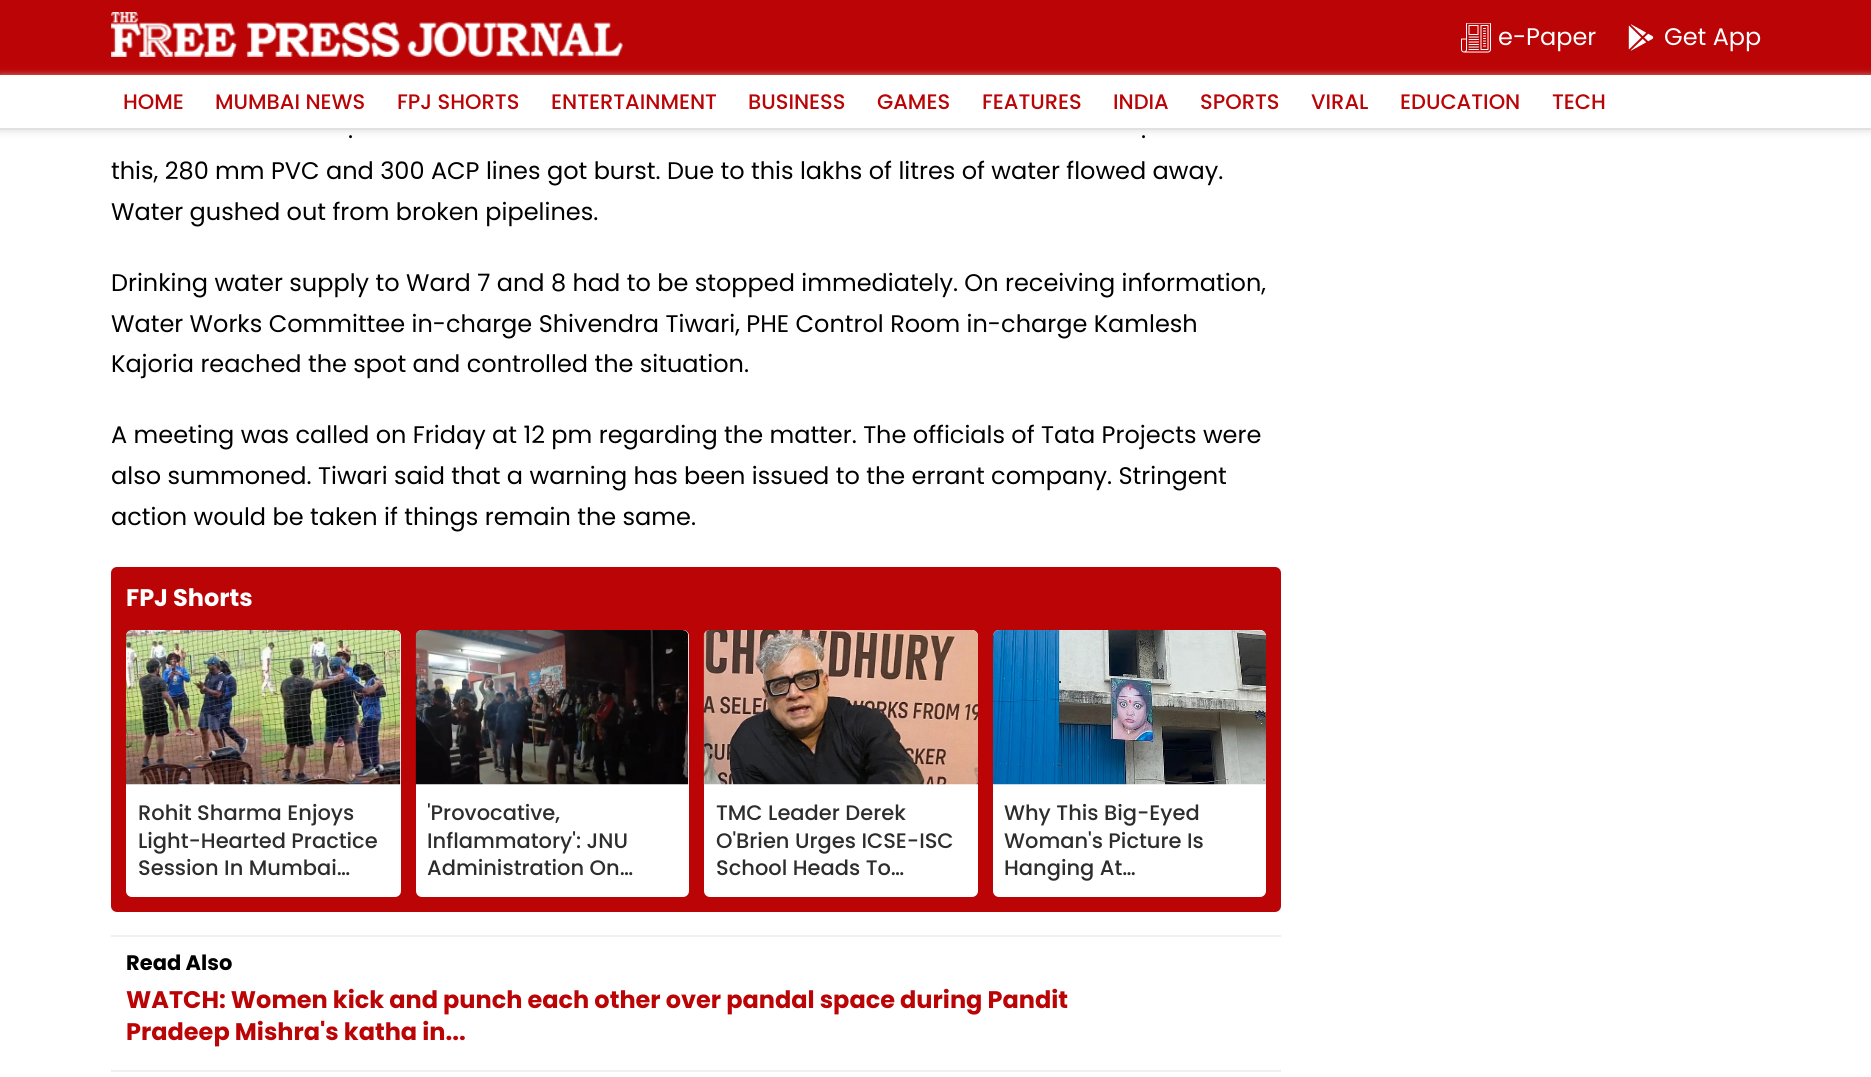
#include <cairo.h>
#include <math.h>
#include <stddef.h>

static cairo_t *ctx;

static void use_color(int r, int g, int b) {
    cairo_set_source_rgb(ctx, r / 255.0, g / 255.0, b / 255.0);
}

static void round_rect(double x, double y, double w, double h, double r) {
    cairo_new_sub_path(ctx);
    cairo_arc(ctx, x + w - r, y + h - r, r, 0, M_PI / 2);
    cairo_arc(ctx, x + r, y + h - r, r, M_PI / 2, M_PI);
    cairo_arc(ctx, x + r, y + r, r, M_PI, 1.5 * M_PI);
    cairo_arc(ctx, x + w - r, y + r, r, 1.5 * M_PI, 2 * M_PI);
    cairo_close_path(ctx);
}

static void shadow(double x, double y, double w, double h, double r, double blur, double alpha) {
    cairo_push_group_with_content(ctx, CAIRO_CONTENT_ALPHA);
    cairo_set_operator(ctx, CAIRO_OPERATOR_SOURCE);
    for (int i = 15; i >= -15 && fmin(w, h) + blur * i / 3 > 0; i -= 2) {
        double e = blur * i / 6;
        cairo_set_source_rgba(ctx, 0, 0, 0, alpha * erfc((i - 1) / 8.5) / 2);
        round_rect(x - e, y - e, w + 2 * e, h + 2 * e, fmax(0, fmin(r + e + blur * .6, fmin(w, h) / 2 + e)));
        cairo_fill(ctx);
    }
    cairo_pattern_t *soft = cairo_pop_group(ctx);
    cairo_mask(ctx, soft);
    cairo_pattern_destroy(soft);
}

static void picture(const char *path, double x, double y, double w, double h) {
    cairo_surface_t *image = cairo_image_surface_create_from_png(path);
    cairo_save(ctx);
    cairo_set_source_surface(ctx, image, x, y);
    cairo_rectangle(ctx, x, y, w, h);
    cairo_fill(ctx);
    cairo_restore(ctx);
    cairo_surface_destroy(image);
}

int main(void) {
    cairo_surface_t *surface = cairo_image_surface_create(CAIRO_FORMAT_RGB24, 1871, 1077);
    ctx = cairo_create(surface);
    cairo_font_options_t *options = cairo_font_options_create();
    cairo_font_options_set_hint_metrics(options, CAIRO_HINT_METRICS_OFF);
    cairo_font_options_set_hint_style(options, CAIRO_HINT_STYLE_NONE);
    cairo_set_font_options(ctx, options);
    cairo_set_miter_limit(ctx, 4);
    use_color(255, 255, 255);
    cairo_paint(ctx);
    use_color(186, 4, 6);
    cairo_rectangle(ctx, 0, 0, 1871, 75);
    cairo_fill(ctx);
    picture("img1.png", 111, 12, 512, 45);
    picture("img2.png", 1461, 23, 30, 30);
    cairo_select_font_face(ctx, "Poppins", CAIRO_FONT_SLANT_NORMAL, CAIRO_FONT_WEIGHT_NORMAL);
    cairo_set_font_size(ctx, 24);
    use_color(255, 255, 255);
    cairo_move_to(ctx, 1498, 45);
    cairo_show_text(ctx, "e-Paper");
    picture("img3.png", 1628, 24, 26, 27);
    cairo_move_to(ctx, 1664, 45);
    cairo_show_text(ctx, "Get App");
    use_color(226, 224, 224);
    shadow(0, 77, 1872, 54, 0, 4, 1);
    use_color(255, 255, 255);
    cairo_rectangle(ctx, 0, 75, 1871, 53);
    cairo_fill(ctx);
    use_color(226, 224, 224);
    cairo_rectangle(ctx, 0, 128, 1871, 2);
    cairo_fill(ctx);
    cairo_select_font_face(ctx, "Poppins Medium", CAIRO_FONT_SLANT_NORMAL, CAIRO_FONT_WEIGHT_NORMAL);
    cairo_set_font_size(ctx, 21);
    use_color(186, 4, 6);
    cairo_move_to(ctx, 123, 109);
    cairo_show_text(ctx, "HOME");
    cairo_move_to(ctx, 215, 109);
    cairo_show_text(ctx, "MUMBAI NEWS");
    cairo_move_to(ctx, 397, 109);
    cairo_show_text(ctx, "FPJ SHORTS");
    cairo_move_to(ctx, 551, 109);
    cairo_show_text(ctx, "ENTERTAINMENT");
    cairo_move_to(ctx, 748, 109);
    cairo_show_text(ctx, "BUSINESS");
    cairo_move_to(ctx, 877, 109);
    cairo_show_text(ctx, "GAMES");
    cairo_move_to(ctx, 982, 109);
    cairo_show_text(ctx, "FEATURES");
    cairo_move_to(ctx, 1113, 109);
    cairo_show_text(ctx, "INDIA");
    cairo_move_to(ctx, 1200, 109);
    cairo_show_text(ctx, "SPORTS");
    cairo_move_to(ctx, 1311, 109);
    cairo_show_text(ctx, "VIRAL");
    cairo_move_to(ctx, 1400, 109);
    cairo_show_text(ctx, "EDUCATION");
    cairo_move_to(ctx, 1552, 109);
    cairo_show_text(ctx, "TECH");
    cairo_select_font_face(ctx, "Poppins", CAIRO_FONT_SLANT_NORMAL, CAIRO_FONT_WEIGHT_NORMAL);
    cairo_set_font_size(ctx, 24);
    use_color(0, 0, 0);
    cairo_move_to(ctx, 348, 138);
    cairo_show_text(ctx, ".");
    cairo_move_to(ctx, 1141, 138);
    cairo_show_text(ctx, ".");
    cairo_move_to(ctx, 111, 179);
    cairo_show_text(ctx, "this, 280 mm PVC and 300 ACP lines got burst. Due to this lakhs of litres of water flowed away.");
    cairo_move_to(ctx, 111, 220);
    cairo_show_text(ctx, "Water gushed out from broken pipelines.");
    cairo_move_to(ctx, 111, 291);
    cairo_show_text(ctx, "Drinking water supply to Ward 7 and 8 had to be stopped immediately. On receiving information,");
    cairo_move_to(ctx, 111, 332);
    cairo_show_text(ctx, "Water Works Committee in-charge Shivendra Tiwari, PHE Control Room in-charge Kamlesh");
    cairo_move_to(ctx, 111, 372);
    cairo_show_text(ctx, "Kajoria reached the spot and controlled the situation.");
    cairo_move_to(ctx, 111, 443);
    cairo_show_text(ctx, "A meeting was called on Friday at 12 pm regarding the matter. The officials of Tata Projects were");
    cairo_move_to(ctx, 111, 484);
    cairo_show_text(ctx, "also summoned. Tiwari said that a warning has been issued to the errant company. Stringent");
    cairo_move_to(ctx, 111, 525);
    cairo_show_text(ctx, "action would be taken if things remain the same.");
    use_color(186, 4, 6);
    round_rect(111, 567, 1170, 345, 6);
    cairo_fill(ctx);
    cairo_select_font_face(ctx, "Poppins", CAIRO_FONT_SLANT_NORMAL, CAIRO_FONT_WEIGHT_BOLD);
    use_color(255, 255, 255);
    cairo_move_to(ctx, 126, 606);
    cairo_show_text(ctx, "FPJ Shorts");
    round_rect(126, 630, 275, 267, 6);
    cairo_fill(ctx);
    picture("img4.png", 126, 630, 275, 155);
    cairo_select_font_face(ctx, "Poppins Medium", CAIRO_FONT_SLANT_NORMAL, CAIRO_FONT_WEIGHT_NORMAL);
    cairo_set_font_size(ctx, 21);
    use_color(45, 45, 45);
    cairo_move_to(ctx, 138, 820);
    cairo_show_text(ctx, "Rohit Sharma Enjoys");
    cairo_move_to(ctx, 138, 848);
    cairo_show_text(ctx, "Light-Hearted Practice");
    cairo_move_to(ctx, 138, 875);
    cairo_show_text(ctx, "Session In Mumbai…");
    use_color(255, 255, 255);
    round_rect(416, 630, 273, 267, 6);
    cairo_fill(ctx);
    picture("img5.png", 415, 630, 274, 155);
    cairo_save(ctx);
    cairo_rectangle(ctx, 428, 800, 249, 82);
    cairo_clip(ctx);
    use_color(45, 45, 45);
    cairo_move_to(ctx, 427, 820);
    cairo_show_text(ctx, "'Provocative,");
    cairo_restore(ctx);
    use_color(45, 45, 45);
    cairo_move_to(ctx, 427, 848);
    cairo_show_text(ctx, "Inflammatory': JNU");
    cairo_move_to(ctx, 427, 875);
    cairo_show_text(ctx, "Administration On…");
    use_color(255, 255, 255);
    round_rect(704, 630, 274, 267, 6);
    cairo_fill(ctx);
    picture("img6.png", 703, 630, 275, 155);
    use_color(45, 45, 45);
    cairo_move_to(ctx, 716, 820);
    cairo_show_text(ctx, "TMC Leader Derek");
    cairo_move_to(ctx, 716, 848);
    cairo_show_text(ctx, "O'Brien Urges ICSE-ISC");
    cairo_move_to(ctx, 716, 875);
    cairo_show_text(ctx, "School Heads To…");
    use_color(255, 255, 255);
    round_rect(993, 630, 273, 267, 6);
    cairo_fill(ctx);
    picture("img7.png", 993, 630, 273, 155);
    use_color(45, 45, 45);
    cairo_move_to(ctx, 1004, 820);
    cairo_show_text(ctx, "Why This Big-Eyed");
    cairo_move_to(ctx, 1004, 848);
    cairo_show_text(ctx, "Woman's Picture Is");
    cairo_move_to(ctx, 1004, 875);
    cairo_show_text(ctx, "Hanging At…");
    use_color(240, 240, 240);
    cairo_rectangle(ctx, 111, 935, 1170, 2);
    cairo_fill(ctx);
    cairo_rectangle(ctx, 111, 1070, 1170, 2);
    cairo_fill(ctx);
    cairo_select_font_face(ctx, "Poppins", CAIRO_FONT_SLANT_NORMAL, CAIRO_FONT_WEIGHT_BOLD);
    use_color(0, 0, 0);
    cairo_move_to(ctx, 126, 970);
    cairo_show_text(ctx, "Read Also");
    cairo_set_font_size(ctx, 24);
    use_color(186, 4, 6);
    cairo_move_to(ctx, 126, 1008);
    cairo_show_text(ctx, "WATCH: Women kick and punch each other over pandal space during Pandit");
    cairo_move_to(ctx, 126, 1040);
    cairo_show_text(ctx, "Pradeep Mishra's katha in...");
    cairo_surface_write_to_png(surface, "result.png");
    cairo_font_options_destroy(options);
    cairo_destroy(ctx);
    cairo_surface_destroy(surface);
    return 0;
}
